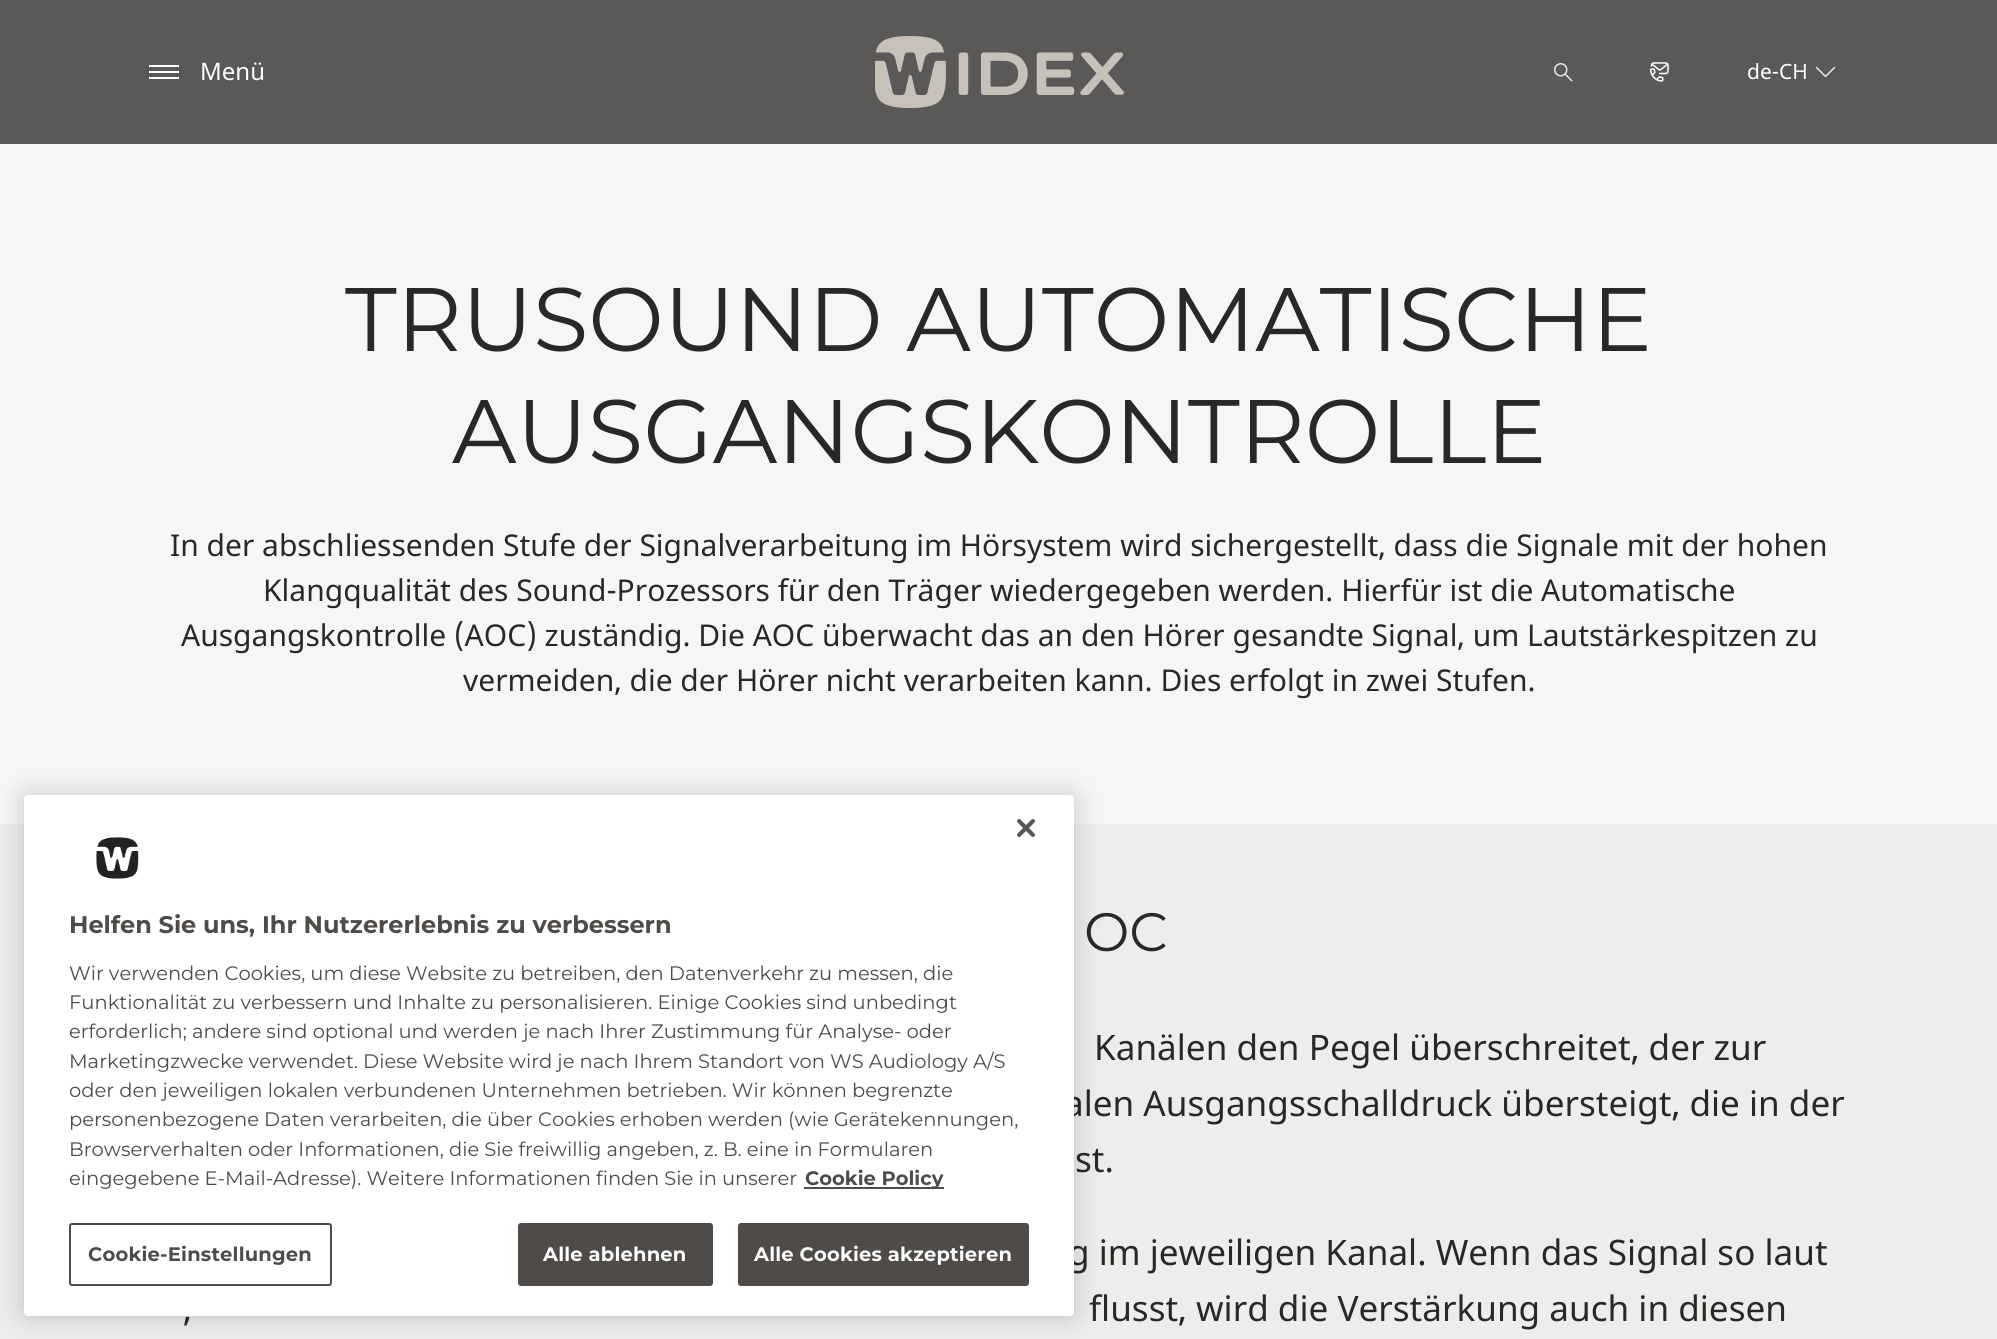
#include <cairo.h>
#include <math.h>
#include <stddef.h>

static cairo_t *ctx;

static void use_color(int r, int g, int b) {
    cairo_set_source_rgb(ctx, r / 255.0, g / 255.0, b / 255.0);
}

static void spaced_text(double x, double y, const char *s, double letter, double word) {
    cairo_move_to(ctx, x, y);
    while (*s) {
        char ch[5] = {0};
        int n = 0;
        do ch[n++] = *s++; while ((*s & 0xC0) == 0x80);
        cairo_show_text(ctx, ch);
        cairo_rel_move_to(ctx, letter + word * (*ch == ' '), 0);
    }
}

static void round_rect(double x, double y, double w, double h, double r) {
    cairo_new_sub_path(ctx);
    cairo_arc(ctx, x + w - r, y + h - r, r, 0, M_PI / 2);
    cairo_arc(ctx, x + r, y + h - r, r, M_PI / 2, M_PI);
    cairo_arc(ctx, x + r, y + r, r, M_PI, 1.5 * M_PI);
    cairo_arc(ctx, x + w - r, y + r, r, 1.5 * M_PI, 2 * M_PI);
    cairo_close_path(ctx);
}

static void shadow(double x, double y, double w, double h, double r, double blur, double alpha) {
    cairo_push_group_with_content(ctx, CAIRO_CONTENT_ALPHA);
    cairo_set_operator(ctx, CAIRO_OPERATOR_SOURCE);
    for (int i = 15; i >= -15 && fmin(w, h) + blur * i / 3 > 0; i -= 2) {
        double e = blur * i / 6;
        cairo_set_source_rgba(ctx, 0, 0, 0, alpha * erfc((i - 1) / 8.5) / 2);
        round_rect(x - e, y - e, w + 2 * e, h + 2 * e, fmax(0, fmin(r + e + blur * .6, fmin(w, h) / 2 + e)));
        cairo_fill(ctx);
    }
    cairo_pattern_t *soft = cairo_pop_group(ctx);
    cairo_mask(ctx, soft);
    cairo_pattern_destroy(soft);
}

static void picture(const char *path, double x, double y, double w, double h) {
    cairo_surface_t *image = cairo_image_surface_create_from_png(path);
    cairo_save(ctx);
    cairo_set_source_surface(ctx, image, x, y);
    cairo_rectangle(ctx, x, y, w, h);
    cairo_fill(ctx);
    cairo_restore(ctx);
    cairo_surface_destroy(image);
}

int main(void) {
    cairo_surface_t *surface = cairo_image_surface_create(CAIRO_FORMAT_RGB24, 1997, 1339);
    ctx = cairo_create(surface);
    cairo_font_options_t *options = cairo_font_options_create();
    cairo_font_options_set_hint_metrics(options, CAIRO_HINT_METRICS_OFF);
    cairo_font_options_set_hint_style(options, CAIRO_HINT_STYLE_NONE);
    cairo_set_font_options(ctx, options);
    cairo_set_miter_limit(ctx, 4);
    use_color(239, 237, 236);
    cairo_paint(ctx);
    use_color(91, 89, 88);
    cairo_rectangle(ctx, 0, 0, 1997, 144);
    cairo_fill(ctx);
    use_color(255, 255, 255);
    cairo_rectangle(ctx, 149, 71, 30, 2);
    cairo_fill(ctx);
    cairo_rectangle(ctx, 149, 65, 30, 2);
    cairo_fill(ctx);
    cairo_rectangle(ctx, 149, 77, 30, 2);
    cairo_fill(ctx);
    cairo_select_font_face(ctx, "Noto Sans", CAIRO_FONT_SLANT_NORMAL, CAIRO_FONT_WEIGHT_NORMAL);
    cairo_set_font_size(ctx, 24);
    cairo_move_to(ctx, 200, 80);
    cairo_show_text(ctx, "Menü");
    picture("img1.png", 875, 36, 249, 72);
    picture("img2.png", 1554, 63, 19, 19);
    picture("img3.png", 1650, 62, 19, 20);
    cairo_set_font_size(ctx, 21);
    cairo_move_to(ctx, 1747, 79);
    cairo_show_text(ctx, "de-CH");
    picture("img4.png", 1815, 66, 21, 12);
    use_color(247, 246, 245);
    cairo_rectangle(ctx, 0, 144, 1997, 680);
    cairo_fill(ctx);
    cairo_select_font_face(ctx, "Montserrat", CAIRO_FONT_SLANT_NORMAL, CAIRO_FONT_WEIGHT_NORMAL);
    cairo_set_font_size(ctx, 90);
    use_color(42, 40, 38);
    cairo_move_to(ctx, 345, 351);
    cairo_show_text(ctx, "TRUSOUND AUTOMATISCHE");
    cairo_move_to(ctx, 452, 463);
    cairo_show_text(ctx, "AUSGANGSKONTROLLE");
    cairo_select_font_face(ctx, "Noto Sans", CAIRO_FONT_SLANT_NORMAL, CAIRO_FONT_WEIGHT_NORMAL);
    cairo_set_font_size(ctx, 30);
    cairo_move_to(ctx, 170, 556);
    cairo_show_text(ctx, "In der abschliessenden Stufe der Signalverarbeitung im Hörsystem wird sichergestellt, dass die Signale mit der hohen");
    cairo_move_to(ctx, 263, 601);
    cairo_show_text(ctx, "Klangqualität des Sound-Prozessors für den Träger wiedergegeben werden. Hierfür ist die Automatische");
    cairo_move_to(ctx, 181, 646);
    cairo_show_text(ctx, "Ausgangskontrolle (AOC) zuständig. Die AOC überwacht das an den Hörer gesandte Signal, um Lautstärkespitzen zu");
    cairo_move_to(ctx, 463, 691);
    cairo_show_text(ctx, "vermeiden, die der Hörer nicht verarbeiten kann. Dies erfolgt in zwei Stufen.");
    cairo_select_font_face(ctx, "Montserrat", CAIRO_FONT_SLANT_NORMAL, CAIRO_FONT_WEIGHT_NORMAL);
    cairo_set_font_size(ctx, 54);
    cairo_move_to(ctx, 1084, 951);
    cairo_show_text(ctx, "OC");
    cairo_select_font_face(ctx, "Noto Sans", CAIRO_FONT_SLANT_NORMAL, CAIRO_FONT_WEIGHT_NORMAL);
    cairo_set_font_size(ctx, 35.1);
    cairo_move_to(ctx, 1094, 1060);
    cairo_show_text(ctx, "Kanälen den Pegel überschreitet, der zur");
    cairo_move_to(ctx, 1064, 1116);
    cairo_show_text(ctx, "alen Ausgangsschalldruck übersteigt, die in der");
    cairo_move_to(ctx, 1075, 1172);
    cairo_show_text(ctx, "st.");
    cairo_move_to(ctx, 1068, 1265);
    cairo_show_text(ctx, "g im jeweiligen Kanal. Wenn das Signal so laut");
    cairo_move_to(ctx, 183, 1321);
    cairo_show_text(ctx, ",");
    cairo_move_to(ctx, 1089, 1321);
    cairo_show_text(ctx, "flusst, wird die Verstärkung auch in diesen");
    use_color(0, 0, 0);
    shadow(24, 795, 1050, 521, 4, 13.5, 0.2);
    use_color(255, 255, 255);
    round_rect(24, 795, 1050, 521, 4);
    cairo_fill(ctx);
    picture("img5.png", 1017, 819, 18, 18);
    picture("img6.png", 96, 837, 43, 42);
    cairo_select_font_face(ctx, "Montserrat", CAIRO_FONT_SLANT_NORMAL, CAIRO_FONT_WEIGHT_BOLD);
    cairo_set_font_size(ctx, 24);
    use_color(78, 75, 72);
    cairo_move_to(ctx, 69, 933);
    cairo_show_text(ctx, "Helfen Sie uns, Ihr Nutzererlebnis zu verbessern");
    cairo_select_font_face(ctx, "Montserrat", CAIRO_FONT_SLANT_NORMAL, CAIRO_FONT_WEIGHT_NORMAL);
    cairo_set_font_size(ctx, 19.5);
    cairo_move_to(ctx, 69, 980);
    cairo_show_text(ctx, "Wir verwenden Cookies, um diese Website zu betreiben, den Datenverkehr zu messen, die");
    cairo_move_to(ctx, 69, 1009);
    cairo_show_text(ctx, "Funktionalität zu verbessern und Inhalte zu personalisieren. Einige Cookies sind unbedingt");
    cairo_move_to(ctx, 69, 1038);
    cairo_show_text(ctx, "erforderlich; andere sind optional und werden je nach Ihrer Zustimmung für Analyse- oder");
    cairo_move_to(ctx, 69, 1068);
    cairo_show_text(ctx, "Marketingzwecke verwendet. Diese Website wird je nach Ihrem Standort von WS Audiology A/S");
    cairo_move_to(ctx, 69, 1097);
    cairo_show_text(ctx, "oder den jeweiligen lokalen verbundenen Unternehmen betrieben. Wir können begrenzte");
    cairo_move_to(ctx, 69, 1126);
    cairo_show_text(ctx, "personenbezogene Daten verarbeiten, die über Cookies erhoben werden (wie Gerätekennungen,");
    cairo_move_to(ctx, 69, 1156);
    cairo_show_text(ctx, "Browserverhalten oder Informationen, die Sie freiwillig angeben, z. B. eine in Formularen");
    cairo_move_to(ctx, 69, 1185);
    cairo_show_text(ctx, "eingegebene E-Mail-Adresse). Weitere Informationen finden Sie in unserer");
    cairo_rectangle(ctx, 804, 1187, 140, 2);
    cairo_fill(ctx);
    cairo_select_font_face(ctx, "Montserrat", CAIRO_FONT_SLANT_NORMAL, CAIRO_FONT_WEIGHT_BOLD);
    cairo_move_to(ctx, 805, 1185);
    cairo_show_text(ctx, "Cookie Policy");
    round_rect(70, 1224, 261, 61, 2);
    cairo_stroke(ctx);
    spaced_text(88, 1261, "Cookie-Einstellungen", 0.2, 0);
    round_rect(519, 1224, 193, 61, 2);
    cairo_fill_preserve(ctx);
    cairo_stroke(ctx);
    use_color(255, 255, 255);
    spaced_text(543, 1261, "Alle ablehnen", 0.2, 0);
    use_color(78, 75, 72);
    round_rect(739, 1224, 289, 61, 2);
    cairo_fill_preserve(ctx);
    cairo_stroke(ctx);
    use_color(255, 255, 255);
    spaced_text(754, 1261, "Alle Cookies akzeptieren", 0.2, 0);
    cairo_surface_write_to_png(surface, "result.png");
    cairo_font_options_destroy(options);
    cairo_destroy(ctx);
    cairo_surface_destroy(surface);
    return 0;
}
